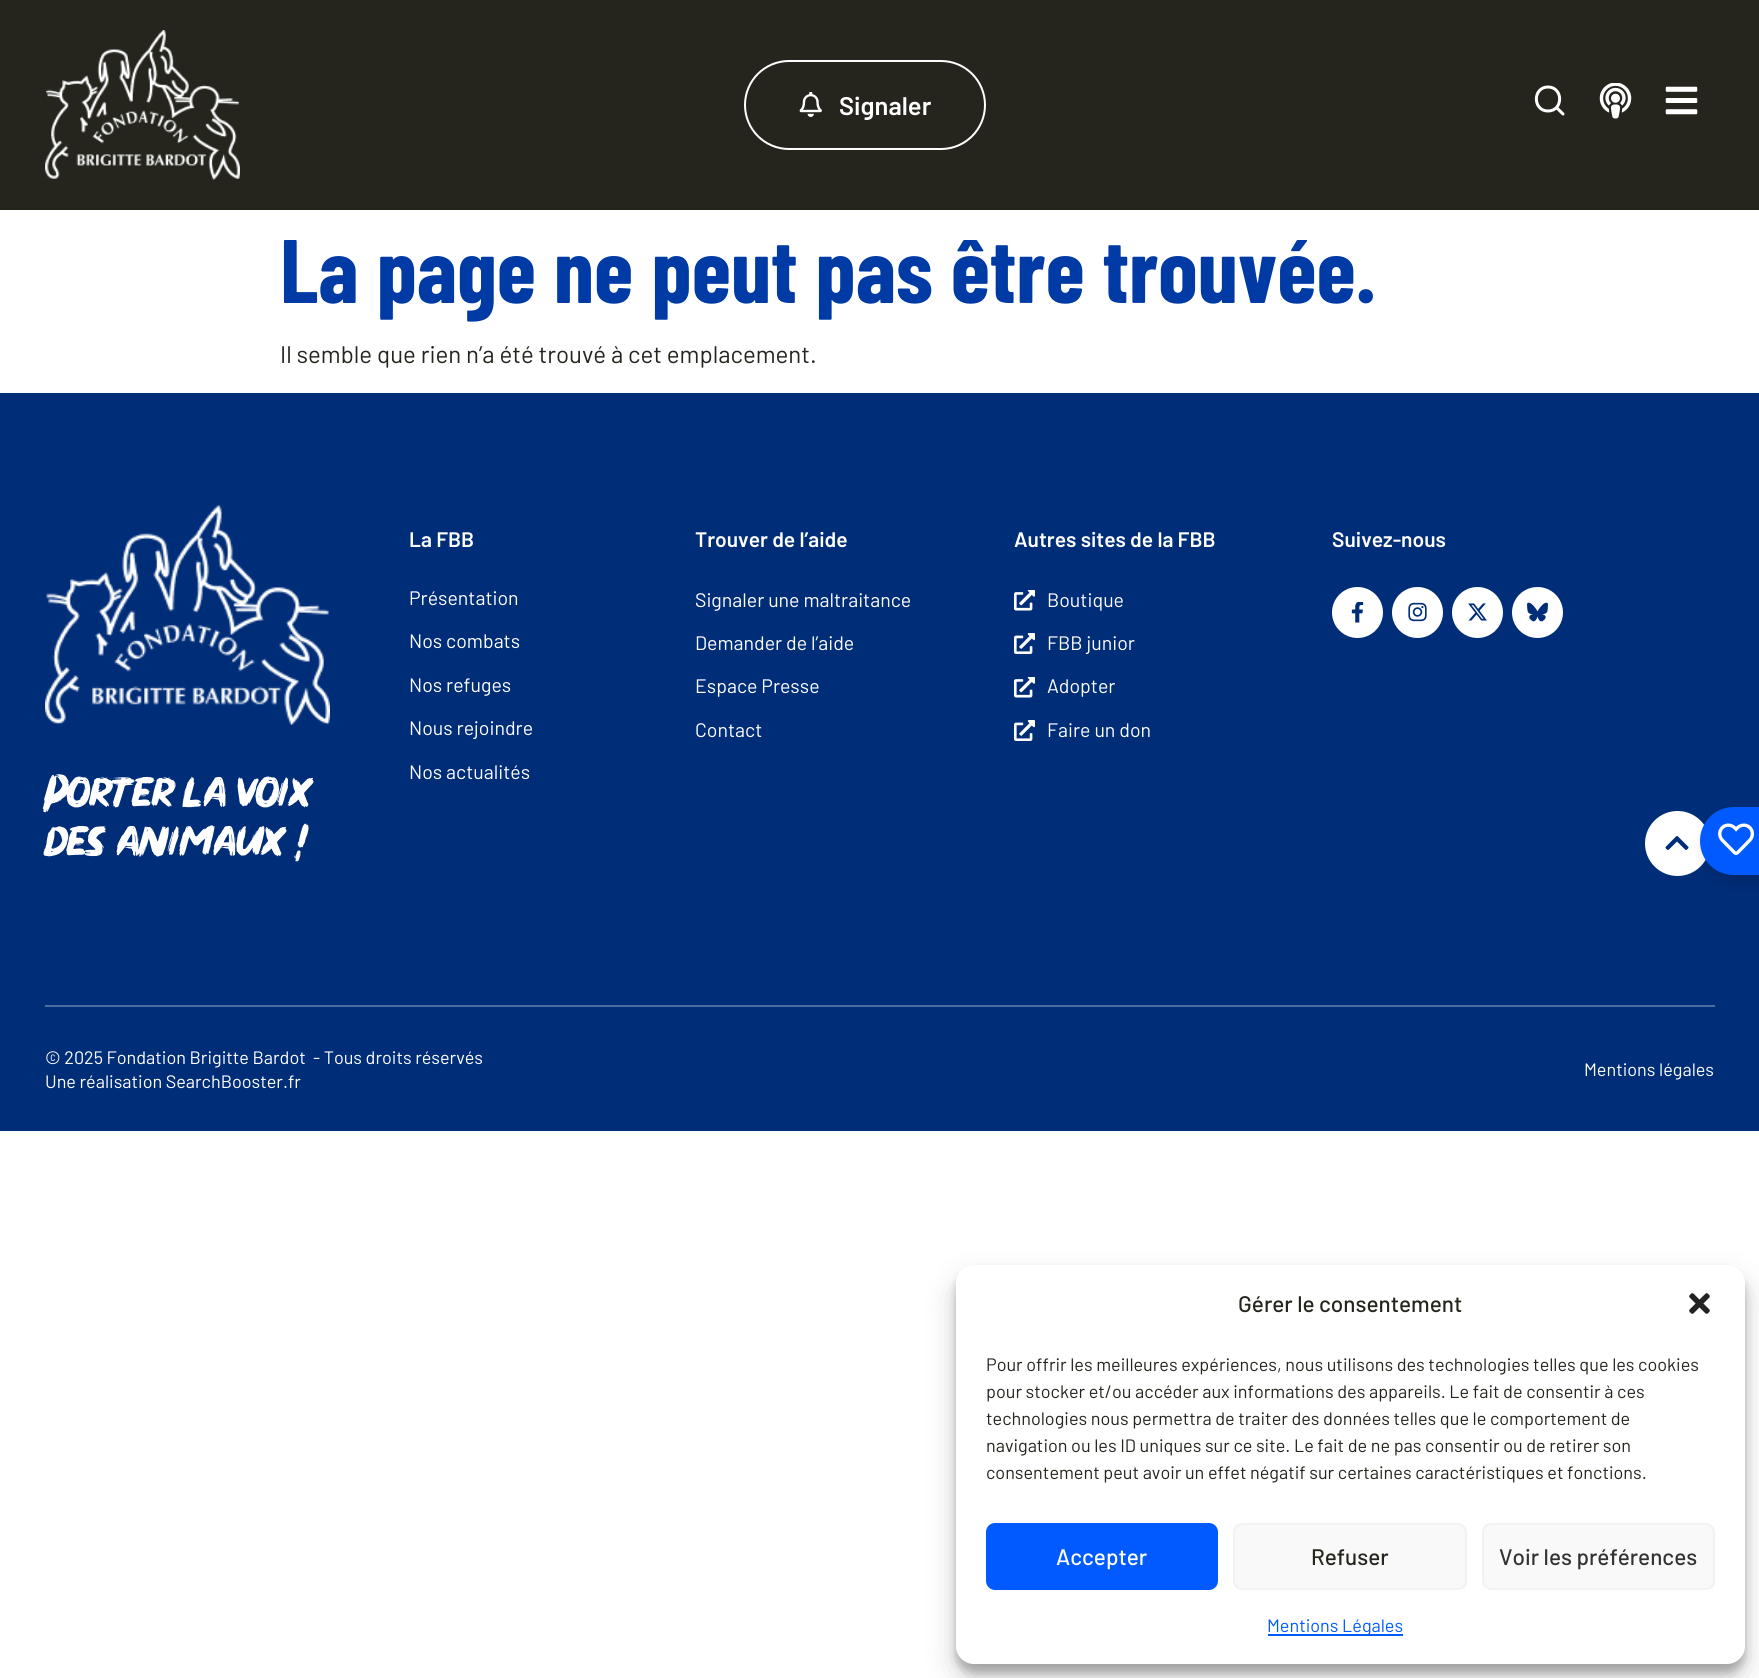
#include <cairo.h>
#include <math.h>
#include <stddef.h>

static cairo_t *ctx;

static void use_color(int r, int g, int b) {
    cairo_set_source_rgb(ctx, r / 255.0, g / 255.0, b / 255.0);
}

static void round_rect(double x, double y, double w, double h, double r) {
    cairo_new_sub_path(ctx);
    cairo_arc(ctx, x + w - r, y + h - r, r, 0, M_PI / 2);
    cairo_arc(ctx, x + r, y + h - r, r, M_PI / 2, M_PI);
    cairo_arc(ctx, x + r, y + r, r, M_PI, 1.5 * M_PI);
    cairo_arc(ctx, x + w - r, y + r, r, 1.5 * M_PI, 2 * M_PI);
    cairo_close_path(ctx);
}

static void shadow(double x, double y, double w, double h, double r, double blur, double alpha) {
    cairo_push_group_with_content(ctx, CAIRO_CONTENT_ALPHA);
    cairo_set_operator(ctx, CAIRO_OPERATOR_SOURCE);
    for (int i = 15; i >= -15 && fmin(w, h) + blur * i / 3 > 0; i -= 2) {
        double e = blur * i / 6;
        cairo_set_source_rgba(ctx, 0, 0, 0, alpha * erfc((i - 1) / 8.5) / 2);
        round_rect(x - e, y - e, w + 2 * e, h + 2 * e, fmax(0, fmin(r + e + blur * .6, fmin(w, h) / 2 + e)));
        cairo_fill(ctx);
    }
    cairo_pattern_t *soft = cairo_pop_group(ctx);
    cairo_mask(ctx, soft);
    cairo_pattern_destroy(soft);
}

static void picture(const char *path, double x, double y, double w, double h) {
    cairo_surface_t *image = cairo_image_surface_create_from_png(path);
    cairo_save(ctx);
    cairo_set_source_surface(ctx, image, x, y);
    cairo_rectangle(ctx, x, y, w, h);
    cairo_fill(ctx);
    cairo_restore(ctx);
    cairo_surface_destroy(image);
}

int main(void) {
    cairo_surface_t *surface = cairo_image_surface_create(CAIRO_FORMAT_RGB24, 1759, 1678);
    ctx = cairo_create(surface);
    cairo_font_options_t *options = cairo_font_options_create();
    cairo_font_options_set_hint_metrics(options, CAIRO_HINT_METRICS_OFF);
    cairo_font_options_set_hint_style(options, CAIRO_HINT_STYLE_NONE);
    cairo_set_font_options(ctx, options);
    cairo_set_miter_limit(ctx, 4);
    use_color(255, 255, 255);
    cairo_paint(ctx);
    use_color(37, 37, 30);
    cairo_rectangle(ctx, 0, 0, 1759, 210);
    cairo_fill(ctx);
    picture("img1.png", 45, 30, 195, 150);
    round_rect(745, 61, 240, 88, 44);
    use_color(255, 255, 255);
    cairo_stroke(ctx);
    picture("img2.png", 799, 92, 23, 25);
    cairo_select_font_face(ctx, "Barlow SemiBold", CAIRO_FONT_SLANT_NORMAL, CAIRO_FONT_WEIGHT_NORMAL);
    cairo_set_font_size(ctx, 25.5);
    cairo_move_to(ctx, 839, 115);
    cairo_show_text(ctx, "Signaler");
    cairo_new_path(ctx);
    cairo_move_to(ctx, 1548, 111);
    cairo_curve_to(ctx, 1563.5, 111, 1563.5, 87, 1548, 87);
    cairo_curve_to(ctx, 1532.5, 87, 1532.5, 111, 1548, 111);
    cairo_close_path(ctx);
    cairo_move_to(ctx, 1563, 114);
    cairo_line_to(ctx, 1556.5, 107.5);
    cairo_set_line_width(ctx, 3);
    cairo_set_line_cap(ctx, CAIRO_LINE_CAP_ROUND);
    cairo_set_line_join(ctx, CAIRO_LINE_JOIN_ROUND);
    cairo_stroke(ctx);
    picture("img3.png", 1599, 83, 33, 36);
    picture("img4.png", 1665, 86, 33, 29);
    cairo_select_font_face(ctx, "Barlow Condensed", CAIRO_FONT_SLANT_NORMAL, CAIRO_FONT_WEIGHT_BOLD);
    cairo_set_font_size(ctx, 90);
    use_color(0, 58, 165);
    cairo_move_to(ctx, 280, 303);
    cairo_show_text(ctx, "La page ne peut pas être trouvée.");
    cairo_select_font_face(ctx, "Barlow", CAIRO_FONT_SLANT_NORMAL, CAIRO_FONT_WEIGHT_NORMAL);
    cairo_set_font_size(ctx, 24);
    use_color(37, 37, 30);
    cairo_move_to(ctx, 280, 363);
    cairo_show_text(ctx, "Il semble que rien n’a été trouvé à cet emplacement.");
    use_color(0, 45, 120);
    cairo_rectangle(ctx, 0, 393, 1759, 738);
    cairo_fill(ctx);
    cairo_select_font_face(ctx, "Barlow SemiBold", CAIRO_FONT_SLANT_NORMAL, CAIRO_FONT_WEIGHT_NORMAL);
    cairo_set_font_size(ctx, 21);
    use_color(255, 255, 255);
    cairo_move_to(ctx, 409, 547);
    cairo_show_text(ctx, "La FBB");
    cairo_select_font_face(ctx, "Barlow", CAIRO_FONT_SLANT_NORMAL, CAIRO_FONT_WEIGHT_NORMAL);
    cairo_set_font_size(ctx, 19.5);
    cairo_move_to(ctx, 409, 605);
    cairo_show_text(ctx, "Présentation");
    cairo_move_to(ctx, 409, 648);
    cairo_show_text(ctx, "Nos combats");
    cairo_move_to(ctx, 409, 692);
    cairo_show_text(ctx, "Nos refuges");
    cairo_move_to(ctx, 409, 735);
    cairo_show_text(ctx, "Nous rejoindre");
    cairo_move_to(ctx, 409, 779);
    cairo_show_text(ctx, "Nos actualités");
    cairo_select_font_face(ctx, "Barlow SemiBold", CAIRO_FONT_SLANT_NORMAL, CAIRO_FONT_WEIGHT_NORMAL);
    cairo_set_font_size(ctx, 21);
    cairo_move_to(ctx, 695, 547);
    cairo_show_text(ctx, "Trouver de l’aide");
    cairo_select_font_face(ctx, "Barlow", CAIRO_FONT_SLANT_NORMAL, CAIRO_FONT_WEIGHT_NORMAL);
    cairo_set_font_size(ctx, 19.5);
    cairo_move_to(ctx, 695, 607);
    cairo_show_text(ctx, "Signaler une maltraitance");
    cairo_move_to(ctx, 695, 650);
    cairo_show_text(ctx, "Demander de l’aide");
    cairo_move_to(ctx, 695, 693);
    cairo_show_text(ctx, "Espace Presse");
    cairo_move_to(ctx, 695, 737);
    cairo_show_text(ctx, "Contact");
    cairo_select_font_face(ctx, "Barlow SemiBold", CAIRO_FONT_SLANT_NORMAL, CAIRO_FONT_WEIGHT_NORMAL);
    cairo_set_font_size(ctx, 21);
    cairo_move_to(ctx, 1014, 547);
    cairo_show_text(ctx, "Autres sites de la FBB");
    picture("img5.png", 1014, 590, 21, 21);
    cairo_select_font_face(ctx, "Barlow", CAIRO_FONT_SLANT_NORMAL, CAIRO_FONT_WEIGHT_NORMAL);
    cairo_set_font_size(ctx, 19.5);
    cairo_move_to(ctx, 1047, 607);
    cairo_show_text(ctx, "Boutique");
    picture("img6.png", 1014, 633, 21, 21);
    cairo_move_to(ctx, 1047, 650);
    cairo_show_text(ctx, "FBB junior");
    picture("img5.png", 1014, 677, 21, 21);
    cairo_move_to(ctx, 1047, 693);
    cairo_show_text(ctx, "Adopter");
    picture("img6.png", 1014, 720, 21, 21);
    cairo_move_to(ctx, 1047, 737);
    cairo_show_text(ctx, "Faire un don");
    cairo_select_font_face(ctx, "Barlow SemiBold", CAIRO_FONT_SLANT_NORMAL, CAIRO_FONT_WEIGHT_NORMAL);
    cairo_set_font_size(ctx, 21);
    cairo_move_to(ctx, 1332, 547);
    cairo_show_text(ctx, "Suivez-nous");
    cairo_new_path(ctx);
    cairo_arc(ctx, 1357.5, 612.5, 25.5, 0, 2 * M_PI);
    cairo_fill(ctx);
    picture("img7.png", 1351, 602, 13, 21);
    cairo_arc(ctx, 1417.5, 612.5, 25.5, 0, 2 * M_PI);
    cairo_fill(ctx);
    picture("img8.png", 1408, 602, 19, 20);
    cairo_arc(ctx, 1477.5, 612.5, 25.5, 0, 2 * M_PI);
    cairo_fill(ctx);
    picture("img9.png", 1468, 603, 19, 18);
    cairo_arc(ctx, 1537.5, 612.5, 25.5, 0, 2 * M_PI);
    cairo_fill(ctx);
    picture("img10.png", 1527, 602, 21, 20);
    cairo_arc(ctx, 1677.5, 843.5, 35, 0, 2 * M_PI);
    cairo_fill_preserve(ctx);
    use_color(0, 45, 120);
    cairo_set_line_width(ctx, 5);
    cairo_set_line_cap(ctx, CAIRO_LINE_CAP_BUTT);
    cairo_set_line_join(ctx, CAIRO_LINE_JOIN_MITER);
    cairo_stroke(ctx);
    picture("img11.png", 1665, 836, 24, 14);
    picture("img12.png", 45, 505, 285, 220);
    cairo_select_font_face(ctx, "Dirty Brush", CAIRO_FONT_SLANT_NORMAL, CAIRO_FONT_WEIGHT_NORMAL);
    cairo_set_font_size(ctx, 54);
    use_color(255, 255, 255);
    cairo_move_to(ctx, 45, 812);
    cairo_show_text(ctx, "Porter la voix");
    cairo_move_to(ctx, 45, 861);
    cairo_show_text(ctx, "des animaux !");
    use_color(77, 108, 161);
    cairo_rectangle(ctx, 45, 1005, 1670, 2);
    cairo_fill(ctx);
    cairo_select_font_face(ctx, "Barlow", CAIRO_FONT_SLANT_NORMAL, CAIRO_FONT_WEIGHT_NORMAL);
    cairo_set_font_size(ctx, 18);
    use_color(255, 255, 255);
    cairo_move_to(ctx, 45, 1064);
    cairo_show_text(ctx, "© 2025 Fondation Brigitte Bardot  - Tous droits réservés");
    cairo_move_to(ctx, 45, 1088);
    cairo_show_text(ctx, "Une réalisation SearchBooster.fr");
    cairo_move_to(ctx, 1584, 1076);
    cairo_show_text(ctx, "Mentions légales");
    use_color(0, 0, 0);
    shadow(1706, 813, 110, 68, 34, 7.5, 0.15);
    use_color(0, 90, 255);
    cairo_new_path(ctx);
    cairo_move_to(ctx, 1734, 807);
    cairo_line_to(ctx, 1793, 807);
    cairo_line_to(ctx, 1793, 875);
    cairo_line_to(ctx, 1734, 875);
    cairo_curve_to(ctx, 1715, 875, 1700, 860, 1700, 841);
    cairo_curve_to(ctx, 1700, 822, 1715, 807, 1734, 807);
    cairo_close_path(ctx);
    cairo_fill(ctx);
    picture("img13.png", 1718, 823, 36, 32);
    use_color(0, 0, 0);
    shadow(956, 1274, 789, 399, 18, 4.5, 0.23);
    shadow(956, 1280, 789, 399, 18, 15, 0.19);
    use_color(255, 255, 255);
    round_rect(956, 1265, 789, 399, 18);
    cairo_fill(ctx);
    cairo_select_font_face(ctx, "Barlow Medium", CAIRO_FONT_SLANT_NORMAL, CAIRO_FONT_WEIGHT_NORMAL);
    cairo_set_font_size(ctx, 22.5);
    use_color(37, 37, 30);
    cairo_move_to(ctx, 1238, 1312);
    cairo_show_text(ctx, "Gérer le consentement");
    picture("img14.png", 1689, 1293, 21, 21);
    cairo_select_font_face(ctx, "Barlow", CAIRO_FONT_SLANT_NORMAL, CAIRO_FONT_WEIGHT_NORMAL);
    cairo_set_font_size(ctx, 18);
    cairo_move_to(ctx, 986, 1371);
    cairo_show_text(ctx, "Pour offrir les meilleures expériences, nous utilisons des technologies telles que les cookies");
    cairo_move_to(ctx, 986, 1398);
    cairo_show_text(ctx, "pour stocker et/ou accéder aux informations des appareils. Le fait de consentir à ces");
    cairo_move_to(ctx, 986, 1425);
    cairo_show_text(ctx, "technologies nous permettra de traiter des données telles que le comportement de");
    cairo_move_to(ctx, 986, 1452);
    cairo_show_text(ctx, "navigation ou les ID uniques sur ce site. Le fait de ne pas consentir ou de retirer son");
    cairo_move_to(ctx, 986, 1479);
    cairo_show_text(ctx, "consentement peut avoir un effet négatif sur certaines caractéristiques et fonctions.");
    use_color(0, 90, 255);
    round_rect(987, 1524, 230, 65, 8);
    cairo_fill_preserve(ctx);
    cairo_set_line_width(ctx, 2);
    cairo_stroke(ctx);
    cairo_select_font_face(ctx, "Barlow Medium", CAIRO_FONT_SLANT_NORMAL, CAIRO_FONT_WEIGHT_NORMAL);
    cairo_set_font_size(ctx, 22.5);
    use_color(255, 255, 255);
    cairo_move_to(ctx, 1056, 1565);
    cairo_show_text(ctx, "Accepter");
    use_color(249, 249, 249);
    round_rect(1234, 1524, 232, 65, 8);
    cairo_fill_preserve(ctx);
    use_color(242, 242, 242);
    cairo_stroke(ctx);
    use_color(37, 37, 30);
    cairo_move_to(ctx, 1311, 1565);
    cairo_show_text(ctx, "Refuser");
    use_color(249, 249, 249);
    round_rect(1483, 1524, 231, 65, 8);
    cairo_fill_preserve(ctx);
    use_color(242, 242, 242);
    cairo_stroke(ctx);
    use_color(51, 51, 51);
    cairo_move_to(ctx, 1499, 1565);
    cairo_show_text(ctx, "Voir les préférences");
    use_color(0, 90, 255);
    cairo_rectangle(ctx, 1268, 1634, 135, 2);
    cairo_fill(ctx);
    cairo_select_font_face(ctx, "Barlow", CAIRO_FONT_SLANT_NORMAL, CAIRO_FONT_WEIGHT_NORMAL);
    cairo_set_font_size(ctx, 18);
    cairo_move_to(ctx, 1267, 1632);
    cairo_show_text(ctx, "Mentions Légales");
    cairo_surface_write_to_png(surface, "result.png");
    cairo_font_options_destroy(options);
    cairo_destroy(ctx);
    cairo_surface_destroy(surface);
    return 0;
}
